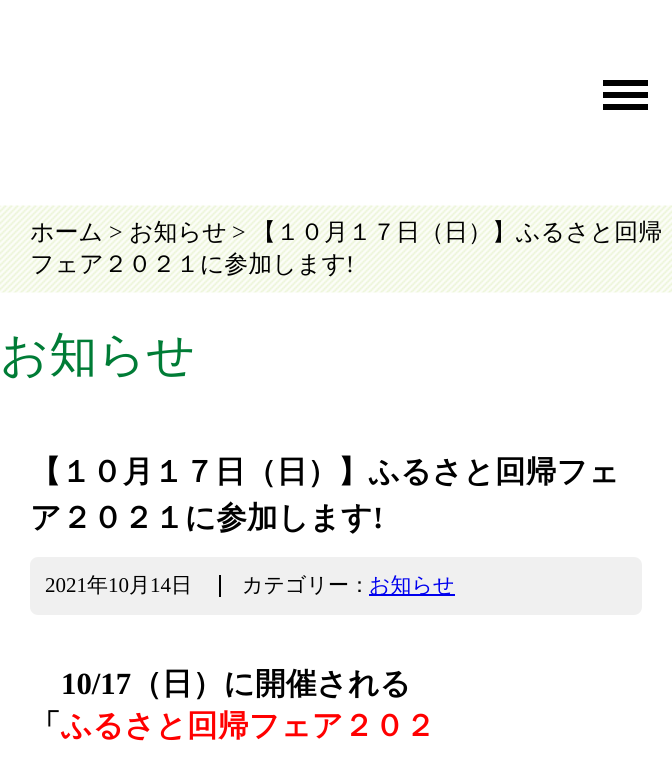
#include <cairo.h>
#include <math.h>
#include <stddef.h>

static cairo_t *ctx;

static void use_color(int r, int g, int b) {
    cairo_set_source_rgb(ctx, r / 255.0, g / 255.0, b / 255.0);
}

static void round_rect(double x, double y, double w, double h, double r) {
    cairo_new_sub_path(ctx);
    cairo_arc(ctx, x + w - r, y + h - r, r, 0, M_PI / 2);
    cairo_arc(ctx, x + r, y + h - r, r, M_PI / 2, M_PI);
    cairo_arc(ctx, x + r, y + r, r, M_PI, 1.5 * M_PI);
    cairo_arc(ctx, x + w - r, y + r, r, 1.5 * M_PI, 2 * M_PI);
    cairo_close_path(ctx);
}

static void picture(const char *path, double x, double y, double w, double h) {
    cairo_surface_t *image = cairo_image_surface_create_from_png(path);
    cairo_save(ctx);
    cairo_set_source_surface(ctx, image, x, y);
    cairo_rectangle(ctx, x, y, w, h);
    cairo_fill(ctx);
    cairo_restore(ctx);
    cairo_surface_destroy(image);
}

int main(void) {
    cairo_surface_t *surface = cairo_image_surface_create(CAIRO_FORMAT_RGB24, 672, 758);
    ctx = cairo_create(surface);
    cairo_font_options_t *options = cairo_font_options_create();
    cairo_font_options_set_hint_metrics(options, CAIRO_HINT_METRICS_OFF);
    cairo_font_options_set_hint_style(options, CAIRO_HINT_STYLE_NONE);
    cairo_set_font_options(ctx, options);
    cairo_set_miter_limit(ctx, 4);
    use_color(255, 255, 255);
    cairo_paint(ctx);
    use_color(0, 0, 0);
    cairo_rectangle(ctx, 603, 92, 45, 6);
    cairo_fill(ctx);
    cairo_rectangle(ctx, 603, 80, 45, 6);
    cairo_fill(ctx);
    cairo_rectangle(ctx, 603, 104, 45, 6);
    cairo_fill(ctx);
    picture("img1.png", 0, 205, 672, 88);
    cairo_select_font_face(ctx, "WenQuanYi Zen Hei Medium", CAIRO_FONT_SLANT_NORMAL, CAIRO_FONT_WEIGHT_NORMAL);
    cairo_set_font_size(ctx, 24);
    cairo_move_to(ctx, 30, 240);
    cairo_show_text(ctx, "ホーム");
    cairo_select_font_face(ctx, "Liberation Serif", CAIRO_FONT_SLANT_NORMAL, CAIRO_FONT_WEIGHT_NORMAL);
    cairo_move_to(ctx, 109, 240);
    cairo_show_text(ctx, ">");
    cairo_select_font_face(ctx, "WenQuanYi Zen Hei Medium", CAIRO_FONT_SLANT_NORMAL, CAIRO_FONT_WEIGHT_NORMAL);
    cairo_move_to(ctx, 129, 240);
    cairo_show_text(ctx, "お知らせ");
    cairo_select_font_face(ctx, "Liberation Serif", CAIRO_FONT_SLANT_NORMAL, CAIRO_FONT_WEIGHT_NORMAL);
    cairo_move_to(ctx, 232, 240);
    cairo_show_text(ctx, ">");
    cairo_select_font_face(ctx, "WenQuanYi Zen Hei Medium", CAIRO_FONT_SLANT_NORMAL, CAIRO_FONT_WEIGHT_NORMAL);
    cairo_move_to(ctx, 252, 240);
    cairo_show_text(ctx, "【１０月１７日（日）】ふるさと回帰");
    cairo_move_to(ctx, 30, 272);
    cairo_show_text(ctx, "フェア２０２１に参加します");
    cairo_select_font_face(ctx, "Liberation Serif", CAIRO_FONT_SLANT_NORMAL, CAIRO_FONT_WEIGHT_NORMAL);
    cairo_move_to(ctx, 346, 272);
    cairo_show_text(ctx, "!");
    cairo_select_font_face(ctx, "WenQuanYi Zen Hei Medium", CAIRO_FONT_SLANT_NORMAL, CAIRO_FONT_WEIGHT_NORMAL);
    cairo_set_font_size(ctx, 48);
    use_color(0, 124, 54);
    cairo_move_to(ctx, 0, 371);
    cairo_show_text(ctx, "お知らせ");
    cairo_select_font_face(ctx, "WenQuanYi Zen Hei", CAIRO_FONT_SLANT_NORMAL, CAIRO_FONT_WEIGHT_BOLD);
    cairo_set_font_size(ctx, 30.8);
    use_color(0, 0, 0);
    cairo_move_to(ctx, 30, 482);
    cairo_show_text(ctx, "【１０月１７日（日）】ふるさと回帰フェ");
    cairo_move_to(ctx, 30, 528);
    cairo_show_text(ctx, "ア２０２１に参加します");
    cairo_select_font_face(ctx, "Liberation Serif", CAIRO_FONT_SLANT_NORMAL, CAIRO_FONT_WEIGHT_BOLD);
    cairo_move_to(ctx, 373, 528);
    cairo_show_text(ctx, "!");
    use_color(240, 240, 240);
    round_rect(30, 557, 612, 58, 8);
    cairo_fill(ctx);
    cairo_select_font_face(ctx, "Liberation Serif", CAIRO_FONT_SLANT_NORMAL, CAIRO_FONT_WEIGHT_NORMAL);
    cairo_set_font_size(ctx, 21);
    use_color(0, 0, 0);
    cairo_move_to(ctx, 45, 592);
    cairo_show_text(ctx, "2021");
    cairo_select_font_face(ctx, "WenQuanYi Zen Hei Medium", CAIRO_FONT_SLANT_NORMAL, CAIRO_FONT_WEIGHT_NORMAL);
    cairo_move_to(ctx, 87, 592);
    cairo_show_text(ctx, "年");
    cairo_select_font_face(ctx, "Liberation Serif", CAIRO_FONT_SLANT_NORMAL, CAIRO_FONT_WEIGHT_NORMAL);
    cairo_move_to(ctx, 108, 592);
    cairo_show_text(ctx, "10");
    cairo_select_font_face(ctx, "WenQuanYi Zen Hei Medium", CAIRO_FONT_SLANT_NORMAL, CAIRO_FONT_WEIGHT_NORMAL);
    cairo_move_to(ctx, 129, 592);
    cairo_show_text(ctx, "月");
    cairo_select_font_face(ctx, "Liberation Serif", CAIRO_FONT_SLANT_NORMAL, CAIRO_FONT_WEIGHT_NORMAL);
    cairo_move_to(ctx, 150, 592);
    cairo_show_text(ctx, "14");
    cairo_select_font_face(ctx, "WenQuanYi Zen Hei Medium", CAIRO_FONT_SLANT_NORMAL, CAIRO_FONT_WEIGHT_NORMAL);
    cairo_move_to(ctx, 171, 592);
    cairo_show_text(ctx, "日");
    cairo_move_to(ctx, 242, 592);
    cairo_show_text(ctx, "カテゴリー：");
    cairo_rectangle(ctx, 219, 575, 2, 22);
    cairo_fill(ctx);
    use_color(0, 0, 238);
    cairo_rectangle(ctx, 369, 594, 86, 2);
    cairo_fill(ctx);
    cairo_move_to(ctx, 369, 592);
    cairo_show_text(ctx, "お知らせ");
    cairo_select_font_face(ctx, "Liberation Serif", CAIRO_FONT_SLANT_NORMAL, CAIRO_FONT_WEIGHT_BOLD);
    cairo_set_font_size(ctx, 30.8);
    use_color(0, 0, 0);
    cairo_move_to(ctx, 61, 694);
    cairo_show_text(ctx, "10/17");
    cairo_select_font_face(ctx, "WenQuanYi Zen Hei", CAIRO_FONT_SLANT_NORMAL, CAIRO_FONT_WEIGHT_BOLD);
    cairo_move_to(ctx, 131, 694);
    cairo_show_text(ctx, "（日）に開催される");
    cairo_move_to(ctx, 30, 736);
    cairo_show_text(ctx, "「");
    use_color(255, 0, 0);
    cairo_move_to(ctx, 61, 736);
    cairo_show_text(ctx, "ふるさと回帰フェア２０２");
    cairo_surface_write_to_png(surface, "result.png");
    cairo_font_options_destroy(options);
    cairo_destroy(ctx);
    cairo_surface_destroy(surface);
    return 0;
}
